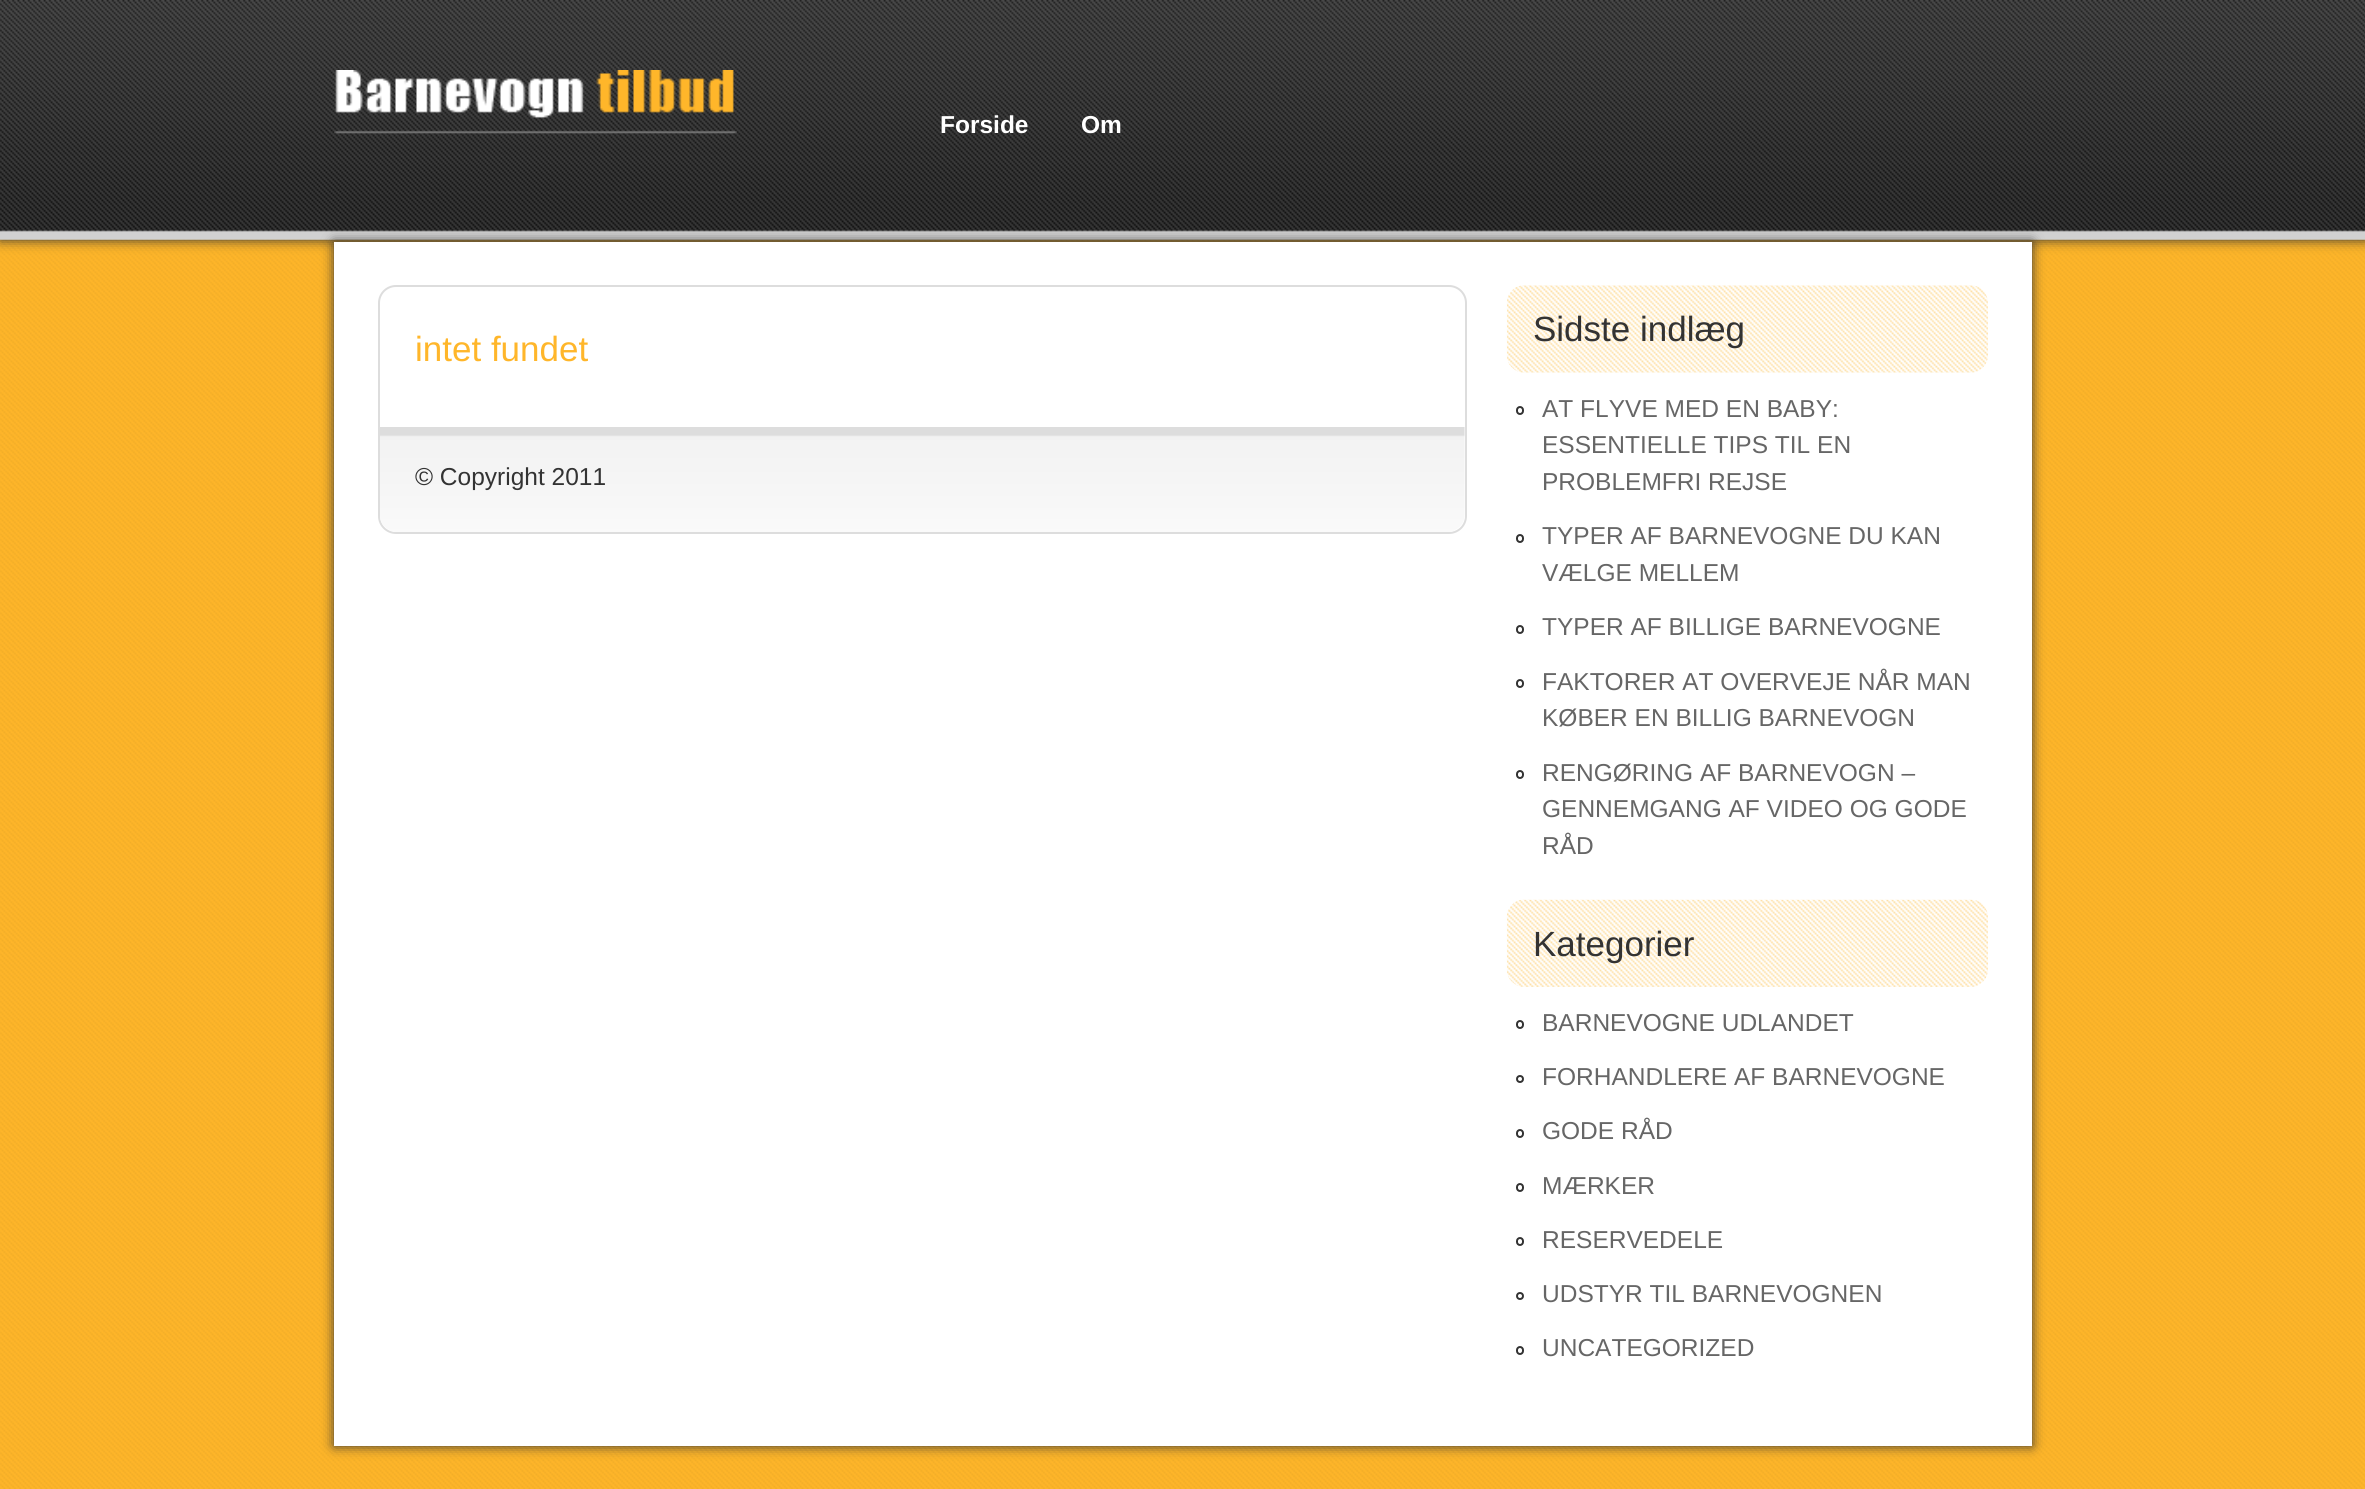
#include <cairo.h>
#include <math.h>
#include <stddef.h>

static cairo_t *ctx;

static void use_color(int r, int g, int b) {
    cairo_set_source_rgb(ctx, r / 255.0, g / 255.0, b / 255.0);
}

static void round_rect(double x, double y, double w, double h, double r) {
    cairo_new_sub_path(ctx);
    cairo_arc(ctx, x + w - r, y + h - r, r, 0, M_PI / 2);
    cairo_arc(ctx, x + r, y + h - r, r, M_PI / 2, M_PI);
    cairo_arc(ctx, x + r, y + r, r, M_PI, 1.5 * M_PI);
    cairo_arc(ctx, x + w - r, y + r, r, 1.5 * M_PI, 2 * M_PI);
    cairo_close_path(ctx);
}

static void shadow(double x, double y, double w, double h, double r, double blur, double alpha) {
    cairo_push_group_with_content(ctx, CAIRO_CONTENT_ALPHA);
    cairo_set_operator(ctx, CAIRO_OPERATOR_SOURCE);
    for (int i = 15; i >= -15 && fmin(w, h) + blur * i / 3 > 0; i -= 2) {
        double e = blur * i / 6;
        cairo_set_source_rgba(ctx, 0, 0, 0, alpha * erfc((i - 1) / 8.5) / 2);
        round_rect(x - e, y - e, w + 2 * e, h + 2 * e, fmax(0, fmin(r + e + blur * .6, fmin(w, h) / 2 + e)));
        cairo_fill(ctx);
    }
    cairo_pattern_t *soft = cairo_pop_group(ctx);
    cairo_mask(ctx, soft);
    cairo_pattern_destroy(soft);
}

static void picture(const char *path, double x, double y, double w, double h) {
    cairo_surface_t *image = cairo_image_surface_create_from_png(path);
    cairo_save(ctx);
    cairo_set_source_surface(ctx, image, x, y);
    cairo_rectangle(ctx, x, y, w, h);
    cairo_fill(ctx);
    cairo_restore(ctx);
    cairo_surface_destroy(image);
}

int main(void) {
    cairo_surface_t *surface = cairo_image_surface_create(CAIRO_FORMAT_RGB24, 2365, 1489);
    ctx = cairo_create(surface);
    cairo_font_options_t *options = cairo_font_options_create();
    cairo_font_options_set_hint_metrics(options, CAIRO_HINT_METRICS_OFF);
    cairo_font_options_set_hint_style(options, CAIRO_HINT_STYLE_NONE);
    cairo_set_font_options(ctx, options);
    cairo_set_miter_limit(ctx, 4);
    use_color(255, 255, 255);
    cairo_paint(ctx);
    picture("img1.png", 0, 239, 2365, 1250);
    use_color(51, 51, 51);
    shadow(0, 0, 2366, 240, 0, 6, 1);
    picture("img2.png", 0, 0, 2365, 240);
    picture("img3.png", 334, 70, 403, 64);
    cairo_select_font_face(ctx, "Liberation Sans", CAIRO_FONT_SLANT_NORMAL, CAIRO_FONT_WEIGHT_BOLD);
    cairo_set_font_size(ctx, 24.5);
    use_color(255, 255, 255);
    cairo_move_to(ctx, 940, 133);
    cairo_show_text(ctx, "Forside");
    cairo_move_to(ctx, 1081, 133);
    cairo_show_text(ctx, "Om");
    use_color(51, 51, 51);
    shadow(334, 242, 1698, 1204, 0, 6, 1);
    use_color(255, 255, 255);
    cairo_rectangle(ctx, 334, 242, 1698, 1204);
    cairo_fill(ctx);
    round_rect(379, 286, 1087, 247, 17);
    use_color(221, 221, 221);
    cairo_stroke(ctx);
    cairo_select_font_face(ctx, "Liberation Sans", CAIRO_FONT_SLANT_NORMAL, CAIRO_FONT_WEIGHT_NORMAL);
    cairo_set_font_size(ctx, 35);
    use_color(255, 182, 42);
    cairo_move_to(ctx, 415, 361);
    cairo_show_text(ctx, "intet fundet");
    picture("img4.png", 380, 427, 1085, 105);
    cairo_set_font_size(ctx, 24.5);
    use_color(51, 51, 51);
    cairo_move_to(ctx, 415, 485);
    cairo_show_text(ctx, "© Copyright 2011");
    picture("img5.png", 1506, 285, 482, 88);
    cairo_set_font_size(ctx, 35);
    cairo_move_to(ctx, 1533, 341);
    cairo_show_text(ctx, "Sidste indlæg");
    round_rect(1517, 407, 6, 7, 3);
    cairo_stroke(ctx);
    cairo_set_font_size(ctx, 24.5);
    use_color(102, 102, 102);
    cairo_move_to(ctx, 1542, 417);
    cairo_show_text(ctx, "AT FLYVE MED EN BABY:");
    cairo_move_to(ctx, 1542, 453);
    cairo_show_text(ctx, "ESSENTIELLE TIPS TIL EN");
    cairo_move_to(ctx, 1542, 490);
    cairo_show_text(ctx, "PROBLEMFRI REJSE");
    round_rect(1517, 535, 6, 7, 3);
    use_color(51, 51, 51);
    cairo_stroke(ctx);
    use_color(102, 102, 102);
    cairo_move_to(ctx, 1542, 544);
    cairo_show_text(ctx, "TYPER AF BARNEVOGNE DU KAN");
    cairo_move_to(ctx, 1542, 581);
    cairo_show_text(ctx, "VÆLGE MELLEM");
    round_rect(1517, 626, 6, 7, 3);
    use_color(51, 51, 51);
    cairo_stroke(ctx);
    use_color(102, 102, 102);
    cairo_move_to(ctx, 1542, 635);
    cairo_show_text(ctx, "TYPER AF BILLIGE BARNEVOGNE");
    round_rect(1517, 680, 6, 7, 3);
    use_color(51, 51, 51);
    cairo_stroke(ctx);
    use_color(102, 102, 102);
    cairo_move_to(ctx, 1542, 690);
    cairo_show_text(ctx, "FAKTORER AT OVERVEJE NÅR MAN");
    cairo_move_to(ctx, 1542, 726);
    cairo_show_text(ctx, "KØBER EN BILLIG BARNEVOGN");
    round_rect(1517, 771, 6, 7, 3);
    use_color(51, 51, 51);
    cairo_stroke(ctx);
    use_color(102, 102, 102);
    cairo_move_to(ctx, 1542, 781);
    cairo_show_text(ctx, "RENGØRING AF BARNEVOGN –");
    cairo_move_to(ctx, 1542, 817);
    cairo_show_text(ctx, "GENNEMGANG AF VIDEO OG GODE");
    cairo_move_to(ctx, 1542, 854);
    cairo_show_text(ctx, "RÅD");
    picture("img6.png", 1506, 899, 482, 88);
    cairo_set_font_size(ctx, 35);
    use_color(51, 51, 51);
    cairo_move_to(ctx, 1533, 956);
    cairo_show_text(ctx, "Kategorier");
    round_rect(1517, 1021, 6, 7, 3);
    cairo_stroke(ctx);
    cairo_set_font_size(ctx, 24.5);
    use_color(102, 102, 102);
    cairo_move_to(ctx, 1542, 1031);
    cairo_show_text(ctx, "BARNEVOGNE UDLANDET");
    cairo_new_path(ctx);
    cairo_arc(ctx, 1520, 1079, 3, 0, 2 * M_PI);
    use_color(51, 51, 51);
    cairo_stroke(ctx);
    use_color(102, 102, 102);
    cairo_move_to(ctx, 1542, 1085);
    cairo_show_text(ctx, "FORHANDLERE AF BARNEVOGNE");
    round_rect(1517, 1130, 6, 7, 3);
    use_color(51, 51, 51);
    cairo_stroke(ctx);
    use_color(102, 102, 102);
    cairo_move_to(ctx, 1542, 1139);
    cairo_show_text(ctx, "GODE RÅD");
    round_rect(1517, 1184, 6, 7, 3);
    use_color(51, 51, 51);
    cairo_stroke(ctx);
    use_color(102, 102, 102);
    cairo_move_to(ctx, 1542, 1194);
    cairo_show_text(ctx, "MÆRKER");
    round_rect(1517, 1238, 6, 7, 3);
    use_color(51, 51, 51);
    cairo_stroke(ctx);
    use_color(102, 102, 102);
    cairo_move_to(ctx, 1542, 1248);
    cairo_show_text(ctx, "RESERVEDELE");
    cairo_new_path(ctx);
    cairo_arc(ctx, 1520, 1296, 3, 0, 2 * M_PI);
    use_color(51, 51, 51);
    cairo_stroke(ctx);
    use_color(102, 102, 102);
    cairo_move_to(ctx, 1542, 1302);
    cairo_show_text(ctx, "UDSTYR TIL BARNEVOGNEN");
    round_rect(1517, 1347, 6, 7, 3);
    use_color(51, 51, 51);
    cairo_stroke(ctx);
    use_color(102, 102, 102);
    cairo_move_to(ctx, 1542, 1356);
    cairo_show_text(ctx, "UNCATEGORIZED");
    cairo_surface_write_to_png(surface, "result.png");
    cairo_font_options_destroy(options);
    cairo_destroy(ctx);
    cairo_surface_destroy(surface);
    return 0;
}
